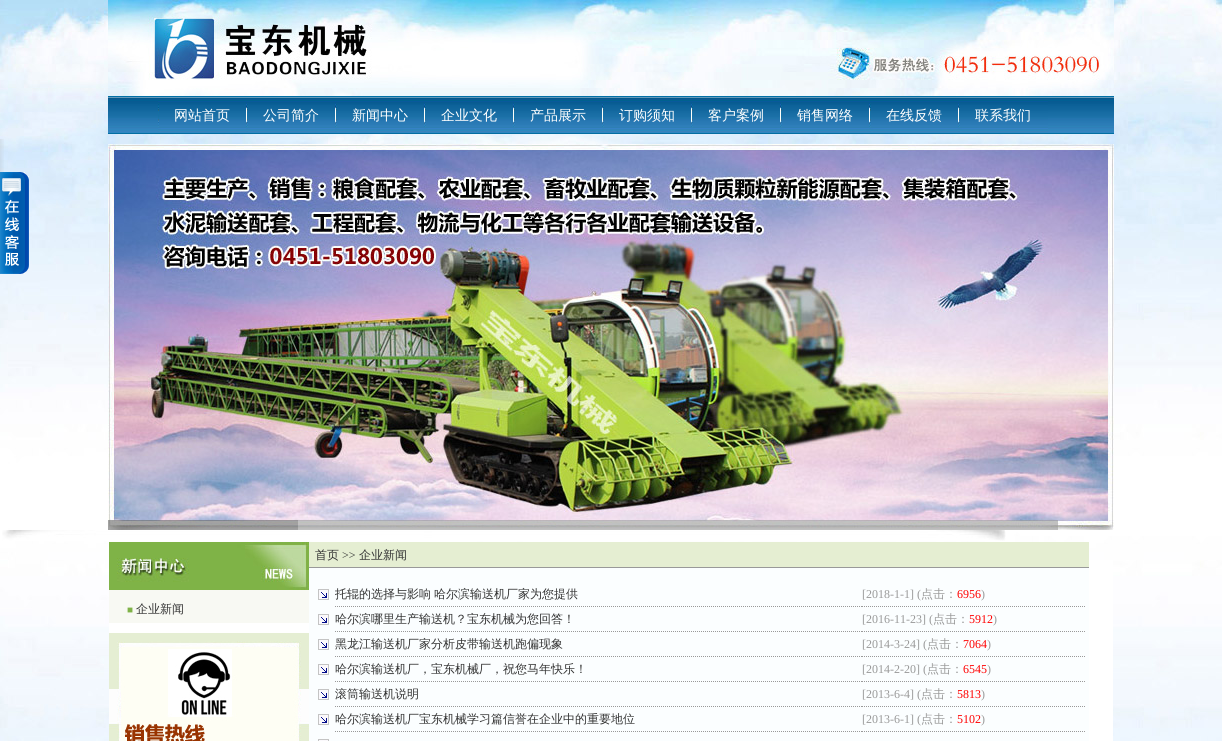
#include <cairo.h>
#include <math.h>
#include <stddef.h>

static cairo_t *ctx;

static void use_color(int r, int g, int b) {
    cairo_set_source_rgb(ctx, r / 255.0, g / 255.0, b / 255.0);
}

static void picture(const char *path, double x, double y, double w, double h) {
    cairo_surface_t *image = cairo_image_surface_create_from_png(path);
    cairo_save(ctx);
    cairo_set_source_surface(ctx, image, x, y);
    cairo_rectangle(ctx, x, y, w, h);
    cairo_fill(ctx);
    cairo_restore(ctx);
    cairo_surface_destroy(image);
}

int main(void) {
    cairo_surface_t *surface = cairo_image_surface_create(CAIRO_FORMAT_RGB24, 1222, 741);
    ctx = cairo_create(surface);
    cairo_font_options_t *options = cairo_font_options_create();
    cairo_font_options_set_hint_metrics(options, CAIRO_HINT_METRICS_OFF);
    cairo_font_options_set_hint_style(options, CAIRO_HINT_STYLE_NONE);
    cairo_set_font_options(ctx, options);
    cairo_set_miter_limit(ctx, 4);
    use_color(255, 255, 255);
    cairo_paint(ctx);
    picture("img1.png", 0, 0, 1222, 741);
    picture("img2.png", 108, 0, 1006, 96);
    picture("img3.png", 108, 96, 1006, 38);
    picture("img4.png", 158, 99, 88, 33);
    cairo_select_font_face(ctx, "WenQuanYi Zen Hei Medium", CAIRO_FONT_SLANT_NORMAL, CAIRO_FONT_WEIGHT_NORMAL);
    cairo_set_font_size(ctx, 14);
    use_color(255, 255, 255);
    cairo_move_to(ctx, 174, 120);
    cairo_show_text(ctx, "网站首页");
    picture("img5.png", 246, 99, 89, 33);
    cairo_move_to(ctx, 263, 120);
    cairo_show_text(ctx, "公司简介");
    picture("img5.png", 335, 99, 89, 33);
    cairo_move_to(ctx, 352, 120);
    cairo_show_text(ctx, "新闻中心");
    picture("img5.png", 424, 99, 89, 33);
    cairo_move_to(ctx, 441, 120);
    cairo_show_text(ctx, "企业文化");
    picture("img5.png", 513, 99, 89, 33);
    cairo_move_to(ctx, 530, 120);
    cairo_show_text(ctx, "产品展示");
    picture("img5.png", 602, 99, 89, 33);
    cairo_move_to(ctx, 619, 120);
    cairo_show_text(ctx, "订购须知");
    picture("img5.png", 691, 99, 89, 33);
    cairo_move_to(ctx, 708, 120);
    cairo_show_text(ctx, "客户案例");
    picture("img5.png", 780, 99, 89, 33);
    cairo_move_to(ctx, 797, 120);
    cairo_show_text(ctx, "销售网络");
    picture("img5.png", 869, 99, 89, 33);
    cairo_move_to(ctx, 886, 120);
    cairo_show_text(ctx, "在线反馈");
    picture("img6.png", 958, 99, 90, 33);
    cairo_move_to(ctx, 975, 120);
    cairo_show_text(ctx, "联系我们");
    picture("img7.png", 108, 144, 1006, 386);
    cairo_set_source_rgba(ctx, 0.4, 0.4, 0.4, 0.6);
    cairo_rectangle(ctx, 108, 520, 190, 10);
    cairo_fill(ctx);
    cairo_set_source_rgba(ctx, 0.6, 0.6, 0.6, 0.6);
    cairo_rectangle(ctx, 298, 520, 190, 10);
    cairo_fill(ctx);
    cairo_rectangle(ctx, 488, 520, 190, 10);
    cairo_fill(ctx);
    cairo_rectangle(ctx, 678, 520, 190, 10);
    cairo_fill(ctx);
    cairo_rectangle(ctx, 868, 520, 190, 10);
    cairo_fill(ctx);
    picture("img8.png", 2, 530, 1004, 11);
    picture("img9.png", 0, 139, 4, 33);
    picture("img10.png", 0, 172, 29, 102);
    use_color(255, 255, 255);
    cairo_rectangle(ctx, 109, 560, 1004, 181);
    cairo_fill(ctx);
    picture("img11.png", 109, 542, 200, 48);
    use_color(248, 249, 243);
    cairo_rectangle(ctx, 109, 590, 200, 33);
    cairo_fill(ctx);
    cairo_select_font_face(ctx, "Liberation Serif", CAIRO_FONT_SLANT_NORMAL, CAIRO_FONT_WEIGHT_NORMAL);
    cairo_set_font_size(ctx, 10);
    use_color(127, 178, 71);
    cairo_move_to(ctx, 127, 613);
    cairo_show_text(ctx, "■");
    cairo_select_font_face(ctx, "WenQuanYi Zen Hei Medium", CAIRO_FONT_SLANT_NORMAL, CAIRO_FONT_WEIGHT_NORMAL);
    cairo_set_font_size(ctx, 12);
    use_color(51, 51, 51);
    cairo_move_to(ctx, 136, 613);
    cairo_show_text(ctx, "企业新闻");
    picture("img12.png", 109, 633, 200, 108);
    use_color(229, 238, 210);
    cairo_rectangle(ctx, 309, 542, 780, 25);
    cairo_fill(ctx);
    use_color(51, 51, 51);
    cairo_move_to(ctx, 315, 559);
    cairo_show_text(ctx, "首页");
    cairo_select_font_face(ctx, "Liberation Serif", CAIRO_FONT_SLANT_NORMAL, CAIRO_FONT_WEIGHT_NORMAL);
    cairo_move_to(ctx, 342, 559);
    cairo_show_text(ctx, ">>");
    cairo_select_font_face(ctx, "WenQuanYi Zen Hei Medium", CAIRO_FONT_SLANT_NORMAL, CAIRO_FONT_WEIGHT_NORMAL);
    cairo_move_to(ctx, 359, 559);
    cairo_show_text(ctx, "企业新闻");
    use_color(153, 153, 153);
    cairo_rectangle(ctx, 309, 567, 780, 1);
    cairo_fill(ctx);
    use_color(251, 254, 255);
    cairo_rectangle(ctx, 309, 568, 780, 173);
    cairo_fill(ctx);
    picture("img13.png", 318, 589, 11, 11);
    cairo_new_path(ctx);
    cairo_move_to(ctx, 335, 606.5);
    cairo_line_to(ctx, 862, 606.5);
    use_color(153, 153, 153);
    cairo_set_line_width(ctx, 1);
    cairo_set_dash(ctx, (double[]){1, 1}, 2, 0);
    cairo_stroke(ctx);
    use_color(51, 51, 51);
    cairo_move_to(ctx, 335, 598);
    cairo_show_text(ctx, "托辊的选择与影响");
    cairo_move_to(ctx, 434, 598);
    cairo_show_text(ctx, "哈尔滨输送机厂家为您提供");
    cairo_new_path(ctx);
    cairo_move_to(ctx, 862, 606.5);
    cairo_line_to(ctx, 1086, 606.5);
    use_color(153, 153, 153);
    cairo_stroke(ctx);
    cairo_select_font_face(ctx, "Liberation Serif", CAIRO_FONT_SLANT_NORMAL, CAIRO_FONT_WEIGHT_NORMAL);
    cairo_move_to(ctx, 862, 598);
    cairo_show_text(ctx, "[2018-1-1] (");
    cairo_select_font_face(ctx, "WenQuanYi Zen Hei Medium", CAIRO_FONT_SLANT_NORMAL, CAIRO_FONT_WEIGHT_NORMAL);
    cairo_move_to(ctx, 921, 598);
    cairo_show_text(ctx, "点击：");
    cairo_select_font_face(ctx, "Liberation Serif", CAIRO_FONT_SLANT_NORMAL, CAIRO_FONT_WEIGHT_NORMAL);
    use_color(255, 0, 0);
    cairo_move_to(ctx, 957, 598);
    cairo_show_text(ctx, "6956");
    use_color(153, 153, 153);
    cairo_move_to(ctx, 981, 598);
    cairo_show_text(ctx, ")");
    picture("img13.png", 318, 614, 11, 11);
    cairo_new_path(ctx);
    cairo_move_to(ctx, 335, 631.5);
    cairo_line_to(ctx, 862, 631.5);
    cairo_stroke(ctx);
    cairo_select_font_face(ctx, "WenQuanYi Zen Hei Medium", CAIRO_FONT_SLANT_NORMAL, CAIRO_FONT_WEIGHT_NORMAL);
    use_color(51, 51, 51);
    cairo_move_to(ctx, 335, 623);
    cairo_show_text(ctx, "哈尔滨哪里生产输送机？宝东机械为您回答！");
    cairo_new_path(ctx);
    cairo_move_to(ctx, 862, 631.5);
    cairo_line_to(ctx, 1086, 631.5);
    use_color(153, 153, 153);
    cairo_stroke(ctx);
    cairo_select_font_face(ctx, "Liberation Serif", CAIRO_FONT_SLANT_NORMAL, CAIRO_FONT_WEIGHT_NORMAL);
    cairo_move_to(ctx, 862, 623);
    cairo_show_text(ctx, "[2016-11-23] (");
    cairo_select_font_face(ctx, "WenQuanYi Zen Hei Medium", CAIRO_FONT_SLANT_NORMAL, CAIRO_FONT_WEIGHT_NORMAL);
    cairo_move_to(ctx, 933, 623);
    cairo_show_text(ctx, "点击：");
    cairo_select_font_face(ctx, "Liberation Serif", CAIRO_FONT_SLANT_NORMAL, CAIRO_FONT_WEIGHT_NORMAL);
    use_color(255, 0, 0);
    cairo_move_to(ctx, 969, 623);
    cairo_show_text(ctx, "5912");
    use_color(153, 153, 153);
    cairo_move_to(ctx, 993, 623);
    cairo_show_text(ctx, ")");
    picture("img13.png", 318, 639, 11, 11);
    cairo_new_path(ctx);
    cairo_move_to(ctx, 335, 656.5);
    cairo_line_to(ctx, 862, 656.5);
    cairo_stroke(ctx);
    cairo_select_font_face(ctx, "WenQuanYi Zen Hei Medium", CAIRO_FONT_SLANT_NORMAL, CAIRO_FONT_WEIGHT_NORMAL);
    use_color(51, 51, 51);
    cairo_move_to(ctx, 335, 648);
    cairo_show_text(ctx, "黑龙江输送机厂家分析皮带输送机跑偏现象");
    cairo_new_path(ctx);
    cairo_move_to(ctx, 862, 656.5);
    cairo_line_to(ctx, 1086, 656.5);
    use_color(153, 153, 153);
    cairo_stroke(ctx);
    cairo_select_font_face(ctx, "Liberation Serif", CAIRO_FONT_SLANT_NORMAL, CAIRO_FONT_WEIGHT_NORMAL);
    cairo_move_to(ctx, 862, 648);
    cairo_show_text(ctx, "[2014-3-24] (");
    cairo_select_font_face(ctx, "WenQuanYi Zen Hei Medium", CAIRO_FONT_SLANT_NORMAL, CAIRO_FONT_WEIGHT_NORMAL);
    cairo_move_to(ctx, 927, 648);
    cairo_show_text(ctx, "点击：");
    cairo_select_font_face(ctx, "Liberation Serif", CAIRO_FONT_SLANT_NORMAL, CAIRO_FONT_WEIGHT_NORMAL);
    use_color(255, 0, 0);
    cairo_move_to(ctx, 963, 648);
    cairo_show_text(ctx, "7064");
    use_color(153, 153, 153);
    cairo_move_to(ctx, 987, 648);
    cairo_show_text(ctx, ")");
    picture("img13.png", 318, 664, 11, 11);
    cairo_new_path(ctx);
    cairo_move_to(ctx, 335, 681.5);
    cairo_line_to(ctx, 862, 681.5);
    cairo_stroke(ctx);
    cairo_select_font_face(ctx, "WenQuanYi Zen Hei Medium", CAIRO_FONT_SLANT_NORMAL, CAIRO_FONT_WEIGHT_NORMAL);
    use_color(51, 51, 51);
    cairo_move_to(ctx, 335, 673);
    cairo_show_text(ctx, "哈尔滨输送机厂，宝东机械厂，祝您马年快乐！");
    cairo_new_path(ctx);
    cairo_move_to(ctx, 862, 681.5);
    cairo_line_to(ctx, 1086, 681.5);
    use_color(153, 153, 153);
    cairo_stroke(ctx);
    cairo_select_font_face(ctx, "Liberation Serif", CAIRO_FONT_SLANT_NORMAL, CAIRO_FONT_WEIGHT_NORMAL);
    cairo_move_to(ctx, 862, 673);
    cairo_show_text(ctx, "[2014-2-20] (");
    cairo_select_font_face(ctx, "WenQuanYi Zen Hei Medium", CAIRO_FONT_SLANT_NORMAL, CAIRO_FONT_WEIGHT_NORMAL);
    cairo_move_to(ctx, 927, 673);
    cairo_show_text(ctx, "点击：");
    cairo_select_font_face(ctx, "Liberation Serif", CAIRO_FONT_SLANT_NORMAL, CAIRO_FONT_WEIGHT_NORMAL);
    use_color(255, 0, 0);
    cairo_move_to(ctx, 963, 673);
    cairo_show_text(ctx, "6545");
    use_color(153, 153, 153);
    cairo_move_to(ctx, 987, 673);
    cairo_show_text(ctx, ")");
    picture("img13.png", 318, 689, 11, 11);
    cairo_new_path(ctx);
    cairo_move_to(ctx, 335, 706.5);
    cairo_line_to(ctx, 862, 706.5);
    cairo_stroke(ctx);
    cairo_select_font_face(ctx, "WenQuanYi Zen Hei Medium", CAIRO_FONT_SLANT_NORMAL, CAIRO_FONT_WEIGHT_NORMAL);
    use_color(51, 51, 51);
    cairo_move_to(ctx, 335, 698);
    cairo_show_text(ctx, "滚筒输送机说明");
    cairo_new_path(ctx);
    cairo_move_to(ctx, 862, 706.5);
    cairo_line_to(ctx, 1086, 706.5);
    use_color(153, 153, 153);
    cairo_stroke(ctx);
    cairo_select_font_face(ctx, "Liberation Serif", CAIRO_FONT_SLANT_NORMAL, CAIRO_FONT_WEIGHT_NORMAL);
    cairo_move_to(ctx, 862, 698);
    cairo_show_text(ctx, "[2013-6-4] (");
    cairo_select_font_face(ctx, "WenQuanYi Zen Hei Medium", CAIRO_FONT_SLANT_NORMAL, CAIRO_FONT_WEIGHT_NORMAL);
    cairo_move_to(ctx, 921, 698);
    cairo_show_text(ctx, "点击：");
    cairo_select_font_face(ctx, "Liberation Serif", CAIRO_FONT_SLANT_NORMAL, CAIRO_FONT_WEIGHT_NORMAL);
    use_color(255, 0, 0);
    cairo_move_to(ctx, 957, 698);
    cairo_show_text(ctx, "5813");
    use_color(153, 153, 153);
    cairo_move_to(ctx, 981, 698);
    cairo_show_text(ctx, ")");
    picture("img13.png", 318, 714, 11, 11);
    cairo_new_path(ctx);
    cairo_move_to(ctx, 335, 731.5);
    cairo_line_to(ctx, 862, 731.5);
    cairo_stroke(ctx);
    cairo_select_font_face(ctx, "WenQuanYi Zen Hei Medium", CAIRO_FONT_SLANT_NORMAL, CAIRO_FONT_WEIGHT_NORMAL);
    use_color(51, 51, 51);
    cairo_move_to(ctx, 335, 723);
    cairo_show_text(ctx, "哈尔滨输送机厂宝东机械学习篇信誉在企业中的重要地位");
    cairo_new_path(ctx);
    cairo_move_to(ctx, 862, 731.5);
    cairo_line_to(ctx, 1086, 731.5);
    use_color(153, 153, 153);
    cairo_stroke(ctx);
    cairo_select_font_face(ctx, "Liberation Serif", CAIRO_FONT_SLANT_NORMAL, CAIRO_FONT_WEIGHT_NORMAL);
    cairo_move_to(ctx, 862, 723);
    cairo_show_text(ctx, "[2013-6-1] (");
    cairo_select_font_face(ctx, "WenQuanYi Zen Hei Medium", CAIRO_FONT_SLANT_NORMAL, CAIRO_FONT_WEIGHT_NORMAL);
    cairo_move_to(ctx, 921, 723);
    cairo_show_text(ctx, "点击：");
    cairo_select_font_face(ctx, "Liberation Serif", CAIRO_FONT_SLANT_NORMAL, CAIRO_FONT_WEIGHT_NORMAL);
    use_color(255, 0, 0);
    cairo_move_to(ctx, 957, 723);
    cairo_show_text(ctx, "5102");
    use_color(153, 153, 153);
    cairo_move_to(ctx, 981, 723);
    cairo_show_text(ctx, ")");
    picture("img14.png", 318, 739, 11, 2);
    cairo_surface_write_to_png(surface, "result.png");
    cairo_font_options_destroy(options);
    cairo_destroy(ctx);
    cairo_surface_destroy(surface);
    return 0;
}
